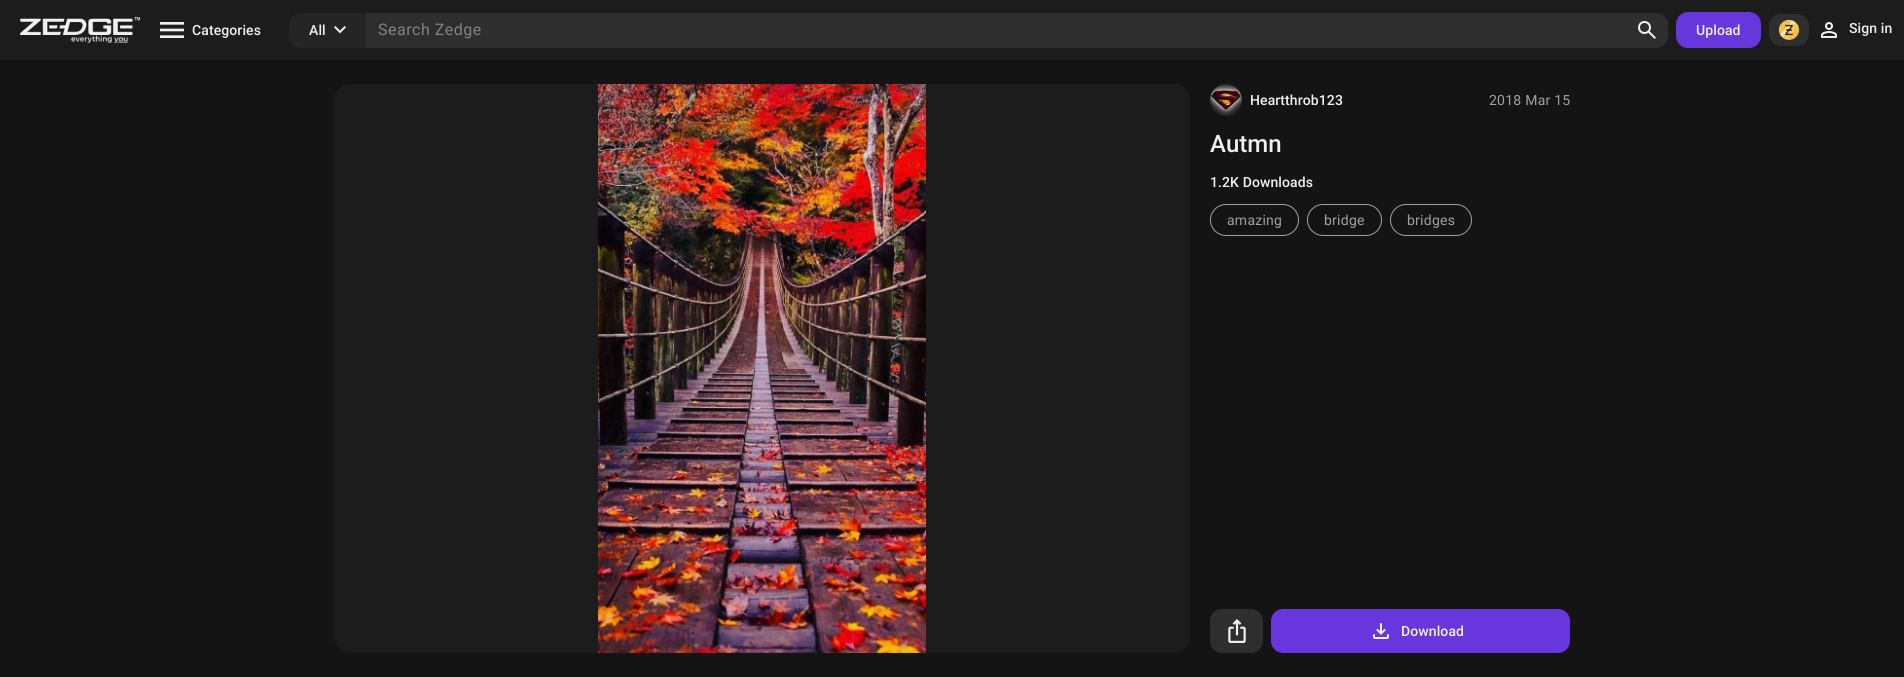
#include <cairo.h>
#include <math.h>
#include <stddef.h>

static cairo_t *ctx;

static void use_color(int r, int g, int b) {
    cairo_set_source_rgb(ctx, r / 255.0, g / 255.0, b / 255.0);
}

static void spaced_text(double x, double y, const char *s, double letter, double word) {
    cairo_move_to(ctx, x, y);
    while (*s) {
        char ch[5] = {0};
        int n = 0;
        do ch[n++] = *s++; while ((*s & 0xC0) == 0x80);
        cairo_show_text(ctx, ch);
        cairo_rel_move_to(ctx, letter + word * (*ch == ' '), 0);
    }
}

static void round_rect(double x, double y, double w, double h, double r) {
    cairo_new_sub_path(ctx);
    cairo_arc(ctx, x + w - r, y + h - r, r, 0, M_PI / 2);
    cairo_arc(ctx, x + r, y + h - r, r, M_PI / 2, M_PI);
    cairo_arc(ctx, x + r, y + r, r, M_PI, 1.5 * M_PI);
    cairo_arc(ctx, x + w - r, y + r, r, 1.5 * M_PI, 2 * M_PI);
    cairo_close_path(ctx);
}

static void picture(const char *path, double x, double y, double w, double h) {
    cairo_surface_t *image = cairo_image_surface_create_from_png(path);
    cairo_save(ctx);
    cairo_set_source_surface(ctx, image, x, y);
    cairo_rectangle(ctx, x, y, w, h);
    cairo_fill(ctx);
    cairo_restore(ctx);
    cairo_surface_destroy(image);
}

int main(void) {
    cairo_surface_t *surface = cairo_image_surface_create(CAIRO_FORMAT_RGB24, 1904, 677);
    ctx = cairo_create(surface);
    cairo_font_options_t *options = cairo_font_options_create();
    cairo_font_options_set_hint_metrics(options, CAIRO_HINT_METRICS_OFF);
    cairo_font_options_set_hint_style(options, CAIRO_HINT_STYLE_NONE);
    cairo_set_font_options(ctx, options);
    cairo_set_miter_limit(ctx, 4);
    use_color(20, 20, 20);
    cairo_paint(ctx);
    use_color(28, 28, 28);
    cairo_rectangle(ctx, 0, 0, 1904, 60);
    cairo_fill(ctx);
    picture("img1.png", 20, 17, 120, 18);
    picture("img2.png", 71, 35, 57, 8);
    picture("img3.png", 160, 22, 24, 16);
    cairo_select_font_face(ctx, "Roboto Medium", CAIRO_FONT_SLANT_NORMAL, CAIRO_FONT_WEIGHT_NORMAL);
    cairo_set_font_size(ctx, 14);
    use_color(240, 240, 240);
    spaced_text(192, 35, "Categories", 0.1, 0);
    use_color(37, 37, 37);
    cairo_new_path(ctx);
    cairo_move_to(ctx, 301, 13);
    cairo_line_to(ctx, 366, 13);
    cairo_line_to(ctx, 366, 48);
    cairo_line_to(ctx, 301, 48);
    cairo_curve_to(ctx, 294.5, 48, 289, 42.5, 289, 36);
    cairo_line_to(ctx, 289, 25);
    cairo_curve_to(ctx, 289, 18.5, 294.5, 13, 301, 13);
    cairo_close_path(ctx);
    cairo_fill(ctx);
    use_color(240, 240, 240);
    spaced_text(309, 35, "All", 0.1, 0);
    picture("img4.png", 334, 26, 12, 8);
    use_color(46, 46, 46);
    cairo_new_path(ctx);
    cairo_move_to(ctx, 366, 13);
    cairo_line_to(ctx, 1656, 13);
    cairo_curve_to(ctx, 1662.5, 13, 1668, 18.5, 1668, 25);
    cairo_line_to(ctx, 1668, 36);
    cairo_curve_to(ctx, 1668, 42.5, 1662.5, 48, 1656, 48);
    cairo_line_to(ctx, 366, 48);
    cairo_close_path(ctx);
    cairo_fill(ctx);
    cairo_select_font_face(ctx, "Roboto", CAIRO_FONT_SLANT_NORMAL, CAIRO_FONT_WEIGHT_NORMAL);
    cairo_set_font_size(ctx, 16);
    use_color(130, 130, 130);
    spaced_text(378, 35, "Search Zedge", 0.5, 0);
    picture("img5.png", 1638, 21, 18, 18);
    use_color(104, 54, 221);
    round_rect(1676, 12, 85, 36, 12);
    cairo_fill(ctx);
    cairo_select_font_face(ctx, "Roboto Medium", CAIRO_FONT_SLANT_NORMAL, CAIRO_FONT_WEIGHT_NORMAL);
    cairo_set_font_size(ctx, 14);
    use_color(240, 240, 240);
    spaced_text(1696, 35, "Upload", 0.1, 0);
    use_color(46, 46, 46);
    round_rect(1769, 14, 40, 32, 12);
    cairo_fill(ctx);
    picture("img6.png", 1778, 19, 22, 21);
    picture("img7.png", 1821, 22, 16, 16);
    use_color(240, 240, 240);
    spaced_text(1849, 33, "Sign in", 0.1, 0);
    use_color(28, 28, 28);
    round_rect(334, 84, 856, 569, 16);
    cairo_fill(ctx);
    picture("img8.png", 598, 84, 328, 569);
    picture("img9.png", 1210, 84, 32, 32);
    use_color(240, 240, 240);
    spaced_text(1250, 105, "Heartthrob123", 0.1, 0);
    cairo_select_font_face(ctx, "Roboto", CAIRO_FONT_SLANT_NORMAL, CAIRO_FONT_WEIGHT_NORMAL);
    use_color(161, 161, 161);
    spaced_text(1489, 105, "2018 Mar 15", 0.25, 0);
    cairo_select_font_face(ctx, "Roboto Medium", CAIRO_FONT_SLANT_NORMAL, CAIRO_FONT_WEIGHT_NORMAL);
    cairo_set_font_size(ctx, 24);
    use_color(240, 240, 240);
    cairo_move_to(ctx, 1210, 152);
    cairo_show_text(ctx, "Autmn");
    cairo_set_font_size(ctx, 14);
    spaced_text(1210, 187, "1.2K Downloads", 0.1, 0);
    round_rect(1210.5, 204.5, 88, 31, 15.5);
    use_color(161, 161, 161);
    cairo_set_line_width(ctx, 1);
    cairo_stroke(ctx);
    cairo_select_font_face(ctx, "Roboto", CAIRO_FONT_SLANT_NORMAL, CAIRO_FONT_WEIGHT_NORMAL);
    spaced_text(1227, 225, "amazing", 0.25, 0);
    round_rect(1307.5, 204.5, 74, 31, 15.5);
    cairo_stroke(ctx);
    spaced_text(1324, 225, "bridge", 0.25, 0);
    round_rect(1390.5, 204.5, 81, 31, 15.5);
    cairo_stroke(ctx);
    spaced_text(1407, 225, "bridges", 0.25, 0);
    use_color(46, 46, 46);
    round_rect(1210, 609, 53, 44, 12);
    cairo_fill(ctx);
    picture("img10.png", 1228, 619, 18, 24);
    use_color(104, 54, 221);
    round_rect(1271, 609, 299, 44, 12);
    cairo_fill(ctx);
    picture("img11.png", 1373, 623, 16, 16);
    cairo_select_font_face(ctx, "Roboto Medium", CAIRO_FONT_SLANT_NORMAL, CAIRO_FONT_WEIGHT_NORMAL);
    use_color(240, 240, 240);
    spaced_text(1401, 636, "Download", 0.1, 0);
    cairo_surface_write_to_png(surface, "result.png");
    cairo_font_options_destroy(options);
    cairo_destroy(ctx);
    cairo_surface_destroy(surface);
    return 0;
}
